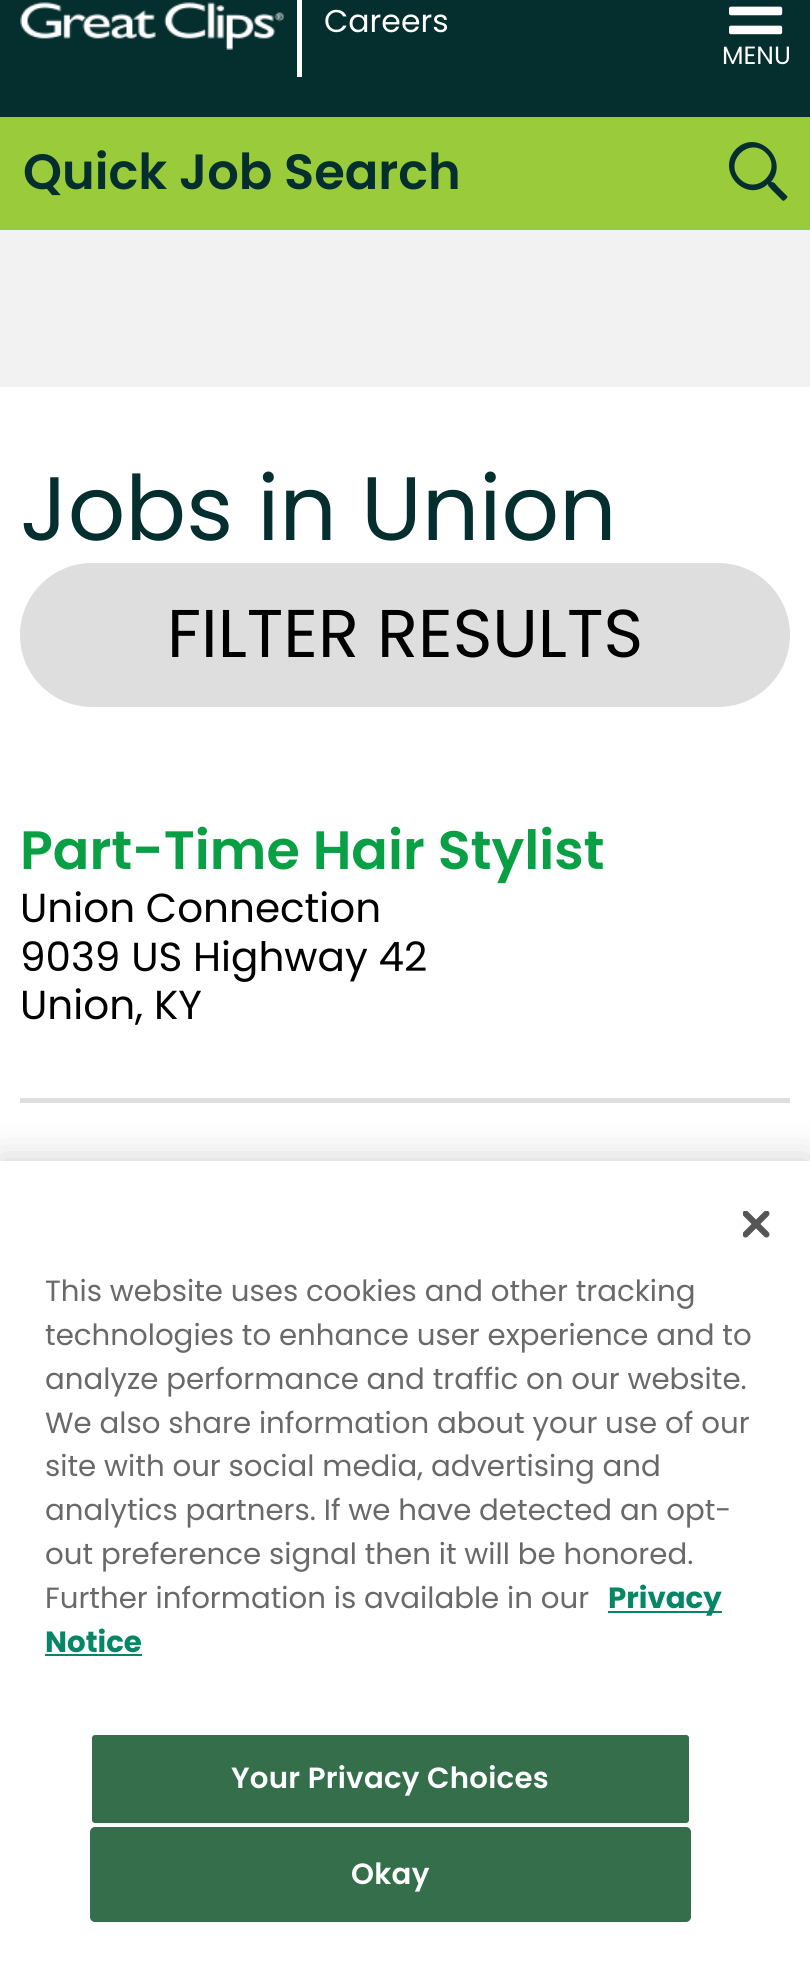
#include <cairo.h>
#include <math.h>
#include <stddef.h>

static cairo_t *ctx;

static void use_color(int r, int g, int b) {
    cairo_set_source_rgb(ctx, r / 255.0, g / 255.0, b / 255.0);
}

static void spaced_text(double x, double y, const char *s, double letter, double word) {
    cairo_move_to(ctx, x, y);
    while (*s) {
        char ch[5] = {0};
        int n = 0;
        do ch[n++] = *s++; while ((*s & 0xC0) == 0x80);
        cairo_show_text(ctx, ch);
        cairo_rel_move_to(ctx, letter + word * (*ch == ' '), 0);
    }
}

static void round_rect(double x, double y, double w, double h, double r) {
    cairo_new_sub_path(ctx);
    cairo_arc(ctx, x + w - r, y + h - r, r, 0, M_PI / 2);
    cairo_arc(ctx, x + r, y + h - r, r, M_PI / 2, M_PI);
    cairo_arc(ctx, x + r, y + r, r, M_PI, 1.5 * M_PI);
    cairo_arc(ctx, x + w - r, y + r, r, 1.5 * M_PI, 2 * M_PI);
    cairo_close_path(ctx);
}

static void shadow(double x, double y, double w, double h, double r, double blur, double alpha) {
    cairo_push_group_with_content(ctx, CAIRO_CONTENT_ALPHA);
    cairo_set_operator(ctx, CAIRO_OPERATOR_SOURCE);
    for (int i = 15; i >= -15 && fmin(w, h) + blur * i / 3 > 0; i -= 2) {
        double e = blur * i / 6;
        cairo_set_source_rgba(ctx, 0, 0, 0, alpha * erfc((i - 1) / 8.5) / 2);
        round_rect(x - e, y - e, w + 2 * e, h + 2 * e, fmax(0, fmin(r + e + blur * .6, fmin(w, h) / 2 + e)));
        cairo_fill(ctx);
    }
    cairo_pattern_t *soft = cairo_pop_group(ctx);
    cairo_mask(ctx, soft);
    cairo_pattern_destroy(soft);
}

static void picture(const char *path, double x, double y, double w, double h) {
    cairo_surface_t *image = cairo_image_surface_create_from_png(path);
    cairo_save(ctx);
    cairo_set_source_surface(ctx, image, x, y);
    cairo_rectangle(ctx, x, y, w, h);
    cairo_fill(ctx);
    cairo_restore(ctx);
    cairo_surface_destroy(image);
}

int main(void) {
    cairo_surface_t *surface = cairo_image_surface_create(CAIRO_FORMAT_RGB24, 810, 1967);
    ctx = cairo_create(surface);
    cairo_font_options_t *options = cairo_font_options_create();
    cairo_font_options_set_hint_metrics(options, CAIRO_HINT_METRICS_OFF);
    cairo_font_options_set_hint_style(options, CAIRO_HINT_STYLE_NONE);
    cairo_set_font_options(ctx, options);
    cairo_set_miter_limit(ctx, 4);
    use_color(255, 255, 255);
    cairo_paint(ctx);
    use_color(5, 46, 46);
    cairo_rectangle(ctx, 0, 0, 810, 117);
    cairo_fill(ctx);
    picture("img1.png", 20, 2, 264, 48);
    use_color(255, 255, 255);
    cairo_rectangle(ctx, 297, 0, 5, 77);
    cairo_fill(ctx);
    cairo_select_font_face(ctx, "Poppins", CAIRO_FONT_SLANT_NORMAL, CAIRO_FONT_WEIGHT_NORMAL);
    cairo_set_font_size(ctx, 31.5);
    cairo_move_to(ctx, 324, 32);
    cairo_show_text(ctx, "Careers");
    picture("img2.png", 729, 6, 54, 29);
    cairo_set_font_size(ctx, 25);
    cairo_move_to(ctx, 722, 64);
    cairo_show_text(ctx, "MENU");
    use_color(154, 203, 58);
    cairo_rectangle(ctx, 0, 117, 810, 113);
    cairo_fill(ctx);
    cairo_select_font_face(ctx, "Poppins SemiBold", CAIRO_FONT_SLANT_NORMAL, CAIRO_FONT_WEIGHT_NORMAL);
    cairo_set_font_size(ctx, 49.5);
    use_color(5, 46, 46);
    cairo_move_to(ctx, 23, 189);
    cairo_show_text(ctx, "Quick Job Search");
    cairo_new_path(ctx);
    cairo_move_to(ctx, 787, 196);
    cairo_curve_to(ctx, 788, 197, 787, 198, 786, 199);
    cairo_curve_to(ctx, 783, 202, 783, 201, 780, 198);
    cairo_line_to(ctx, 771, 189);
    cairo_curve_to(ctx, 769, 186, 768, 187, 768, 184);
    cairo_curve_to(ctx, 746, 204, 715, 171, 736, 149);
    cairo_curve_to(ctx, 757, 128, 790, 159, 771, 182);
    cairo_curve_to(ctx, 775, 182, 775, 184, 778, 187);
    cairo_close_path(ctx);
    cairo_move_to(ctx, 740, 179);
    cairo_curve_to(ctx, 757, 196, 783, 170, 766, 153);
    cairo_curve_to(ctx, 749, 136, 723, 162, 740, 179);
    cairo_close_path(ctx);
    cairo_fill(ctx);
    use_color(242, 242, 242);
    cairo_rectangle(ctx, 0, 230, 810, 157);
    cairo_fill(ctx);
    cairo_select_font_face(ctx, "Poppins", CAIRO_FONT_SLANT_NORMAL, CAIRO_FONT_WEIGHT_NORMAL);
    cairo_set_font_size(ctx, 90);
    use_color(5, 46, 46);
    cairo_move_to(ctx, 20, 540);
    cairo_show_text(ctx, "Jobs in Union");
    use_color(222, 222, 222);
    round_rect(20, 563, 770, 144, 72);
    cairo_fill(ctx);
    cairo_set_font_size(ctx, 67.5);
    use_color(0, 0, 0);
    cairo_move_to(ctx, 167, 657);
    cairo_show_text(ctx, "FILTER RESULTS");
    use_color(222, 222, 222);
    cairo_rectangle(ctx, 20, 1098, 770, 5);
    cairo_fill(ctx);
    cairo_select_font_face(ctx, "Poppins SemiBold", CAIRO_FONT_SLANT_NORMAL, CAIRO_FONT_WEIGHT_NORMAL);
    cairo_set_font_size(ctx, 54);
    use_color(8, 159, 69);
    cairo_move_to(ctx, 20, 869);
    cairo_show_text(ctx, "Part-Time Hair Stylist");
    cairo_select_font_face(ctx, "Poppins", CAIRO_FONT_SLANT_NORMAL, CAIRO_FONT_WEIGHT_NORMAL);
    cairo_set_font_size(ctx, 40.5);
    use_color(0, 0, 0);
    cairo_move_to(ctx, 20, 922);
    cairo_show_text(ctx, "Union Connection");
    cairo_move_to(ctx, 20, 971);
    cairo_show_text(ctx, "9039 US Highway 42");
    cairo_move_to(ctx, 20, 1019);
    cairo_show_text(ctx, "Union, KY");
    use_color(0, 0, 0);
    shadow(0, 1161, 810, 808, 0, 20, 0.2);
    use_color(255, 255, 255);
    cairo_rectangle(ctx, 0, 1161, 810, 806);
    cairo_fill(ctx);
    picture("img3.png", 743, 1211, 27, 27);
    cairo_set_font_size(ctx, 29.25);
    use_color(105, 105, 105);
    cairo_move_to(ctx, 45, 1301);
    cairo_show_text(ctx, "This website uses cookies and other tracking");
    cairo_move_to(ctx, 45, 1345);
    cairo_show_text(ctx, "technologies to enhance user experience and to");
    cairo_move_to(ctx, 45, 1389);
    cairo_show_text(ctx, "analyze performance and traffic on our website.");
    cairo_move_to(ctx, 45, 1433);
    cairo_show_text(ctx, "We also share information about your use of our");
    cairo_move_to(ctx, 45, 1476);
    cairo_show_text(ctx, "site with our social media, advertising and");
    cairo_move_to(ctx, 45, 1520);
    cairo_show_text(ctx, "analytics partners. If we have detected an opt-");
    cairo_move_to(ctx, 45, 1564);
    cairo_show_text(ctx, "out preference signal then it will be honored.");
    cairo_move_to(ctx, 45, 1608);
    cairo_show_text(ctx, "Further information is available in our");
    use_color(4, 134, 103);
    cairo_rectangle(ctx, 608, 1611, 114, 2);
    cairo_fill(ctx);
    cairo_select_font_face(ctx, "Poppins", CAIRO_FONT_SLANT_NORMAL, CAIRO_FONT_WEIGHT_BOLD);
    cairo_move_to(ctx, 608, 1608);
    cairo_show_text(ctx, "Privacy");
    cairo_move_to(ctx, 45, 1652);
    cairo_show_text(ctx, "Notice");
    cairo_rectangle(ctx, 45, 1654, 97, 2);
    cairo_fill(ctx);
    use_color(52, 110, 74);
    round_rect(91, 1734, 599, 90, 4);
    cairo_fill_preserve(ctx);
    use_color(255, 255, 255);
    cairo_stroke(ctx);
    cairo_select_font_face(ctx, "Poppins SemiBold", CAIRO_FONT_SLANT_NORMAL, CAIRO_FONT_WEIGHT_NORMAL);
    spaced_text(231, 1788, "Your Privacy Choices", 0.25, 0);
    use_color(52, 110, 74);
    round_rect(91, 1828, 599, 93, 4);
    cairo_fill_preserve(ctx);
    cairo_stroke(ctx);
    use_color(255, 255, 255);
    spaced_text(351, 1884, "Okay", 0.25, 0);
    cairo_surface_write_to_png(surface, "result.png");
    cairo_font_options_destroy(options);
    cairo_destroy(ctx);
    cairo_surface_destroy(surface);
    return 0;
}
